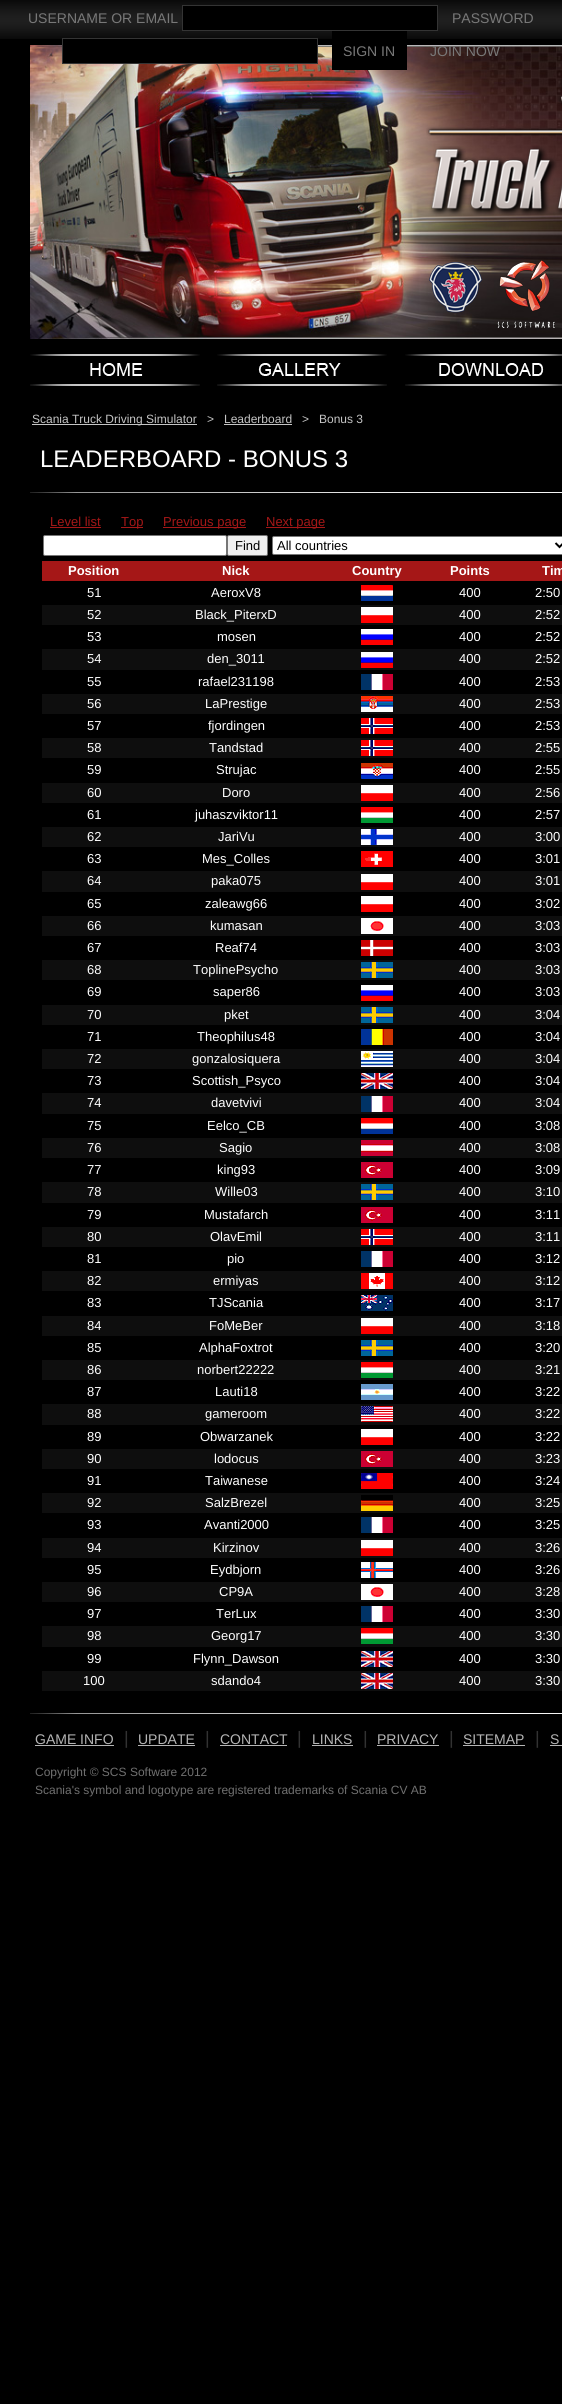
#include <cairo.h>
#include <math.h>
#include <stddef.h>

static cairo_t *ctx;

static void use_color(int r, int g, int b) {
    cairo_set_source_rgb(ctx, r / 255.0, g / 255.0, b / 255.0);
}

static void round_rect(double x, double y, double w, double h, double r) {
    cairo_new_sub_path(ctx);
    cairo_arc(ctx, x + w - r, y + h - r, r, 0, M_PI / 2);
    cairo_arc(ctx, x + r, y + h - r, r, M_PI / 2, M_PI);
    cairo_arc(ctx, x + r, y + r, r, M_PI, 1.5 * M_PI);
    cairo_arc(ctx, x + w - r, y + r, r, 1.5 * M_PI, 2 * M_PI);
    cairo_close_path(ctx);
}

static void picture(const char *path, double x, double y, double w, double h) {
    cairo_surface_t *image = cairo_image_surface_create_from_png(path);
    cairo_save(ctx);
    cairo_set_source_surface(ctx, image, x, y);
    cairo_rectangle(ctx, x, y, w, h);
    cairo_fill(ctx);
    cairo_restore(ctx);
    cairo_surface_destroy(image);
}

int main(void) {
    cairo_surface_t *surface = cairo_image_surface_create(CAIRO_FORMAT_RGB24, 562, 2404);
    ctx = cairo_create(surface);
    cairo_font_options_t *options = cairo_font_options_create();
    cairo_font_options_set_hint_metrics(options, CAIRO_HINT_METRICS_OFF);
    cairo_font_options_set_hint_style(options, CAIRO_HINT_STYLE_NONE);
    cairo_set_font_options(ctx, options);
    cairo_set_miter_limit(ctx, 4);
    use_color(0, 0, 0);
    cairo_paint(ctx);
    picture("img1.png", 0, 0, 562, 39);
    cairo_select_font_face(ctx, "Liberation Sans", CAIRO_FONT_SLANT_NORMAL, CAIRO_FONT_WEIGHT_NORMAL);
    cairo_set_font_size(ctx, 14);
    use_color(120, 120, 120);
    cairo_move_to(ctx, 28, 23);
    cairo_show_text(ctx, "USERNAME OR EMAIL");
    use_color(0, 0, 0);
    cairo_rectangle(ctx, 182.5, 5.5, 255, 25);
    cairo_fill_preserve(ctx);
    use_color(52, 52, 52);
    cairo_set_line_width(ctx, 1);
    cairo_stroke(ctx);
    use_color(120, 120, 120);
    cairo_move_to(ctx, 452, 23);
    cairo_show_text(ctx, "PASSWORD");
    picture("img2.png", 30, 45, 532, 294);
    use_color(0, 0, 0);
    cairo_rectangle(ctx, 63, 45, 254, 18);
    cairo_fill(ctx);
    cairo_rectangle(ctx, 62.5, 38.5, 255, 25);
    use_color(52, 52, 52);
    cairo_stroke(ctx);
    use_color(0, 0, 0);
    cairo_rectangle(ctx, 332, 31, 75, 39);
    cairo_fill(ctx);
    use_color(120, 120, 120);
    cairo_move_to(ctx, 343, 56);
    cairo_show_text(ctx, "SIGN IN");
    cairo_move_to(ctx, 430, 56);
    cairo_show_text(ctx, "JOIN NOW");
    picture("img3.png", 426, 77, 136, 139);
    picture("img4.png", 429, 262, 53, 51);
    picture("img5.png", 497, 260, 58, 68);
    picture("img6.png", 30, 354, 170, 32);
    picture("img7.png", 217, 354, 170, 32);
    picture("img8.png", 405, 354, 157, 32);
    use_color(197, 197, 197);
    cairo_rectangle(ctx, 32, 424, 165, 1);
    cairo_fill(ctx);
    cairo_set_font_size(ctx, 12);
    cairo_move_to(ctx, 32, 423);
    cairo_show_text(ctx, "Scania Truck Driving Simulator");
    cairo_move_to(ctx, 207, 423);
    cairo_show_text(ctx, ">");
    cairo_move_to(ctx, 224, 423);
    cairo_show_text(ctx, "Leaderboard");
    cairo_rectangle(ctx, 224, 424, 68, 1);
    cairo_fill(ctx);
    cairo_move_to(ctx, 302, 423);
    cairo_show_text(ctx, ">   Bonus 3");
    picture("img9.png", 30, 492, 532, 1);
    cairo_set_font_size(ctx, 24);
    use_color(255, 255, 255);
    cairo_move_to(ctx, 40, 467);
    cairo_show_text(ctx, "LEADERBOARD - BONUS 3");
    cairo_set_font_size(ctx, 13);
    use_color(165, 23, 23);
    cairo_move_to(ctx, 50, 526);
    cairo_show_text(ctx, "Level list");
    cairo_rectangle(ctx, 50, 527, 51, 1);
    cairo_fill(ctx);
    cairo_rectangle(ctx, 121, 527, 22, 1);
    cairo_fill(ctx);
    cairo_move_to(ctx, 121, 526);
    cairo_show_text(ctx, "Top");
    cairo_rectangle(ctx, 163, 527, 83, 1);
    cairo_fill(ctx);
    cairo_move_to(ctx, 163, 526);
    cairo_show_text(ctx, "Previous page");
    cairo_rectangle(ctx, 266, 527, 59, 1);
    cairo_fill(ctx);
    cairo_move_to(ctx, 266, 526);
    cairo_show_text(ctx, "Next page");
    use_color(255, 255, 255);
    round_rect(43.5, 535.5, 183, 20, 1.5);
    cairo_fill_preserve(ctx);
    use_color(118, 118, 118);
    cairo_stroke(ctx);
    use_color(239, 239, 239);
    round_rect(227.5, 535.5, 40, 20, 1.5);
    cairo_fill_preserve(ctx);
    use_color(118, 118, 118);
    cairo_stroke(ctx);
    use_color(0, 0, 0);
    cairo_move_to(ctx, 235, 550);
    cairo_show_text(ctx, "Find");
    use_color(255, 255, 255);
    round_rect(272.5, 536.5, 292, 18, 1.5);
    cairo_fill_preserve(ctx);
    use_color(118, 118, 118);
    cairo_stroke(ctx);
    cairo_new_path(ctx);
    cairo_move_to(ctx, 555.5, 543);
    cairo_line_to(ctx, 559.5, 547);
    cairo_line_to(ctx, 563.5, 543);
    use_color(0, 0, 0);
    cairo_set_line_width(ctx, 2);
    cairo_stroke(ctx);
    cairo_move_to(ctx, 277, 550);
    cairo_show_text(ctx, "All countries");
    use_color(165, 23, 23);
    cairo_rectangle(ctx, 42, 561, 520, 20);
    cairo_fill(ctx);
    cairo_select_font_face(ctx, "Liberation Sans", CAIRO_FONT_SLANT_NORMAL, CAIRO_FONT_WEIGHT_BOLD);
    use_color(255, 255, 255);
    cairo_move_to(ctx, 68, 575);
    cairo_show_text(ctx, "Position");
    cairo_move_to(ctx, 222, 575);
    cairo_show_text(ctx, "Nick");
    cairo_move_to(ctx, 352, 575);
    cairo_show_text(ctx, "Country");
    cairo_move_to(ctx, 450, 575);
    cairo_show_text(ctx, "Points");
    cairo_move_to(ctx, 542, 575);
    cairo_show_text(ctx, "Tim");
    cairo_select_font_face(ctx, "Liberation Sans", CAIRO_FONT_SLANT_NORMAL, CAIRO_FONT_WEIGHT_NORMAL);
    cairo_move_to(ctx, 87, 597);
    cairo_show_text(ctx, "51");
    cairo_move_to(ctx, 211, 597);
    cairo_show_text(ctx, "AeroxV8");
    picture("img10.png", 361, 585, 32, 16);
    cairo_move_to(ctx, 459, 597);
    cairo_show_text(ctx, "400");
    cairo_move_to(ctx, 535, 597);
    cairo_show_text(ctx, "2:50");
    use_color(14, 14, 14);
    cairo_rectangle(ctx, 42, 605, 520, 20);
    cairo_fill(ctx);
    use_color(255, 255, 255);
    cairo_move_to(ctx, 87, 619);
    cairo_show_text(ctx, "52");
    cairo_move_to(ctx, 195, 619);
    cairo_show_text(ctx, "Black_PiterxD");
    picture("img11.png", 361, 607, 32, 16);
    cairo_move_to(ctx, 459, 619);
    cairo_show_text(ctx, "400");
    cairo_move_to(ctx, 535, 619);
    cairo_show_text(ctx, "2:52");
    cairo_move_to(ctx, 87, 641);
    cairo_show_text(ctx, "53");
    cairo_move_to(ctx, 217, 641);
    cairo_show_text(ctx, "mosen");
    picture("img12.png", 361, 629, 32, 16);
    cairo_move_to(ctx, 459, 641);
    cairo_show_text(ctx, "400");
    cairo_move_to(ctx, 535, 641);
    cairo_show_text(ctx, "2:52");
    use_color(14, 14, 14);
    cairo_rectangle(ctx, 42, 649, 520, 21);
    cairo_fill(ctx);
    use_color(255, 255, 255);
    cairo_move_to(ctx, 87, 663);
    cairo_show_text(ctx, "54");
    cairo_move_to(ctx, 207, 663);
    cairo_show_text(ctx, "den_3011");
    picture("img12.png", 361, 652, 32, 16);
    cairo_move_to(ctx, 459, 663);
    cairo_show_text(ctx, "400");
    cairo_move_to(ctx, 535, 663);
    cairo_show_text(ctx, "2:52");
    cairo_move_to(ctx, 87, 686);
    cairo_show_text(ctx, "55");
    cairo_move_to(ctx, 198, 686);
    cairo_show_text(ctx, "rafael231198");
    picture("img13.png", 361, 674, 32, 16);
    cairo_move_to(ctx, 459, 686);
    cairo_show_text(ctx, "400");
    cairo_move_to(ctx, 535, 686);
    cairo_show_text(ctx, "2:53");
    use_color(14, 14, 14);
    cairo_rectangle(ctx, 42, 694, 520, 20);
    cairo_fill(ctx);
    use_color(255, 255, 255);
    cairo_move_to(ctx, 87, 708);
    cairo_show_text(ctx, "56");
    cairo_move_to(ctx, 205, 708);
    cairo_show_text(ctx, "LaPrestige");
    picture("img14.png", 361, 696, 32, 16);
    cairo_move_to(ctx, 459, 708);
    cairo_show_text(ctx, "400");
    cairo_move_to(ctx, 535, 708);
    cairo_show_text(ctx, "2:53");
    cairo_move_to(ctx, 87, 730);
    cairo_show_text(ctx, "57");
    cairo_move_to(ctx, 208, 730);
    cairo_show_text(ctx, "fjordingen");
    picture("img15.png", 361, 718, 32, 16);
    cairo_move_to(ctx, 459, 730);
    cairo_show_text(ctx, "400");
    cairo_move_to(ctx, 535, 730);
    cairo_show_text(ctx, "2:53");
    use_color(14, 14, 14);
    cairo_rectangle(ctx, 42, 738, 520, 20);
    cairo_fill(ctx);
    use_color(255, 255, 255);
    cairo_move_to(ctx, 87, 752);
    cairo_show_text(ctx, "58");
    cairo_move_to(ctx, 209, 752);
    cairo_show_text(ctx, "Tandstad");
    picture("img15.png", 361, 740, 32, 16);
    cairo_move_to(ctx, 459, 752);
    cairo_show_text(ctx, "400");
    cairo_move_to(ctx, 535, 752);
    cairo_show_text(ctx, "2:55");
    cairo_move_to(ctx, 87, 774);
    cairo_show_text(ctx, "59");
    cairo_move_to(ctx, 216, 774);
    cairo_show_text(ctx, "Strujac");
    picture("img16.png", 361, 763, 32, 16);
    cairo_move_to(ctx, 459, 774);
    cairo_show_text(ctx, "400");
    cairo_move_to(ctx, 535, 774);
    cairo_show_text(ctx, "2:55");
    use_color(14, 14, 14);
    cairo_rectangle(ctx, 42, 783, 520, 20);
    cairo_fill(ctx);
    use_color(255, 255, 255);
    cairo_move_to(ctx, 87, 797);
    cairo_show_text(ctx, "60");
    cairo_move_to(ctx, 222, 797);
    cairo_show_text(ctx, "Doro");
    picture("img11.png", 361, 785, 32, 16);
    cairo_move_to(ctx, 459, 797);
    cairo_show_text(ctx, "400");
    cairo_move_to(ctx, 535, 797);
    cairo_show_text(ctx, "2:56");
    cairo_move_to(ctx, 87, 819);
    cairo_show_text(ctx, "61");
    cairo_move_to(ctx, 195, 819);
    cairo_show_text(ctx, "juhaszviktor11");
    picture("img17.png", 361, 807, 32, 16);
    cairo_move_to(ctx, 459, 819);
    cairo_show_text(ctx, "400");
    cairo_move_to(ctx, 535, 819);
    cairo_show_text(ctx, "2:57");
    use_color(14, 14, 14);
    cairo_rectangle(ctx, 42, 827, 520, 20);
    cairo_fill(ctx);
    use_color(255, 255, 255);
    cairo_move_to(ctx, 87, 841);
    cairo_show_text(ctx, "62");
    cairo_move_to(ctx, 218, 841);
    cairo_show_text(ctx, "JariVu");
    picture("img18.png", 361, 829, 32, 16);
    cairo_move_to(ctx, 459, 841);
    cairo_show_text(ctx, "400");
    cairo_move_to(ctx, 535, 841);
    cairo_show_text(ctx, "3:00");
    cairo_move_to(ctx, 87, 863);
    cairo_show_text(ctx, "63");
    cairo_move_to(ctx, 202, 863);
    cairo_show_text(ctx, "Mes_Colles");
    picture("img19.png", 361, 851, 32, 16);
    cairo_move_to(ctx, 459, 863);
    cairo_show_text(ctx, "400");
    cairo_move_to(ctx, 535, 863);
    cairo_show_text(ctx, "3:01");
    use_color(14, 14, 14);
    cairo_rectangle(ctx, 42, 871, 520, 21);
    cairo_fill(ctx);
    use_color(255, 255, 255);
    cairo_move_to(ctx, 87, 885);
    cairo_show_text(ctx, "64");
    cairo_move_to(ctx, 211, 885);
    cairo_show_text(ctx, "paka075");
    picture("img11.png", 361, 874, 32, 16);
    cairo_move_to(ctx, 459, 885);
    cairo_show_text(ctx, "400");
    cairo_move_to(ctx, 535, 885);
    cairo_show_text(ctx, "3:01");
    cairo_move_to(ctx, 87, 908);
    cairo_show_text(ctx, "65");
    cairo_move_to(ctx, 205, 908);
    cairo_show_text(ctx, "zaleawg66");
    picture("img11.png", 361, 896, 32, 16);
    cairo_move_to(ctx, 459, 908);
    cairo_show_text(ctx, "400");
    cairo_move_to(ctx, 535, 908);
    cairo_show_text(ctx, "3:02");
    use_color(14, 14, 14);
    cairo_rectangle(ctx, 42, 916, 520, 20);
    cairo_fill(ctx);
    use_color(255, 255, 255);
    cairo_move_to(ctx, 87, 930);
    cairo_show_text(ctx, "66");
    cairo_move_to(ctx, 210, 930);
    cairo_show_text(ctx, "kumasan");
    picture("img20.png", 361, 918, 32, 16);
    cairo_move_to(ctx, 459, 930);
    cairo_show_text(ctx, "400");
    cairo_move_to(ctx, 535, 930);
    cairo_show_text(ctx, "3:03");
    cairo_move_to(ctx, 87, 952);
    cairo_show_text(ctx, "67");
    cairo_move_to(ctx, 215, 952);
    cairo_show_text(ctx, "Reaf74");
    picture("img21.png", 361, 940, 32, 16);
    cairo_move_to(ctx, 459, 952);
    cairo_show_text(ctx, "400");
    cairo_move_to(ctx, 535, 952);
    cairo_show_text(ctx, "3:03");
    use_color(14, 14, 14);
    cairo_rectangle(ctx, 42, 960, 520, 20);
    cairo_fill(ctx);
    use_color(255, 255, 255);
    cairo_move_to(ctx, 87, 974);
    cairo_show_text(ctx, "68");
    cairo_move_to(ctx, 193, 974);
    cairo_show_text(ctx, "ToplinePsycho");
    picture("img22.png", 361, 962, 32, 16);
    cairo_move_to(ctx, 459, 974);
    cairo_show_text(ctx, "400");
    cairo_move_to(ctx, 535, 974);
    cairo_show_text(ctx, "3:03");
    cairo_move_to(ctx, 87, 996);
    cairo_show_text(ctx, "69");
    cairo_move_to(ctx, 213, 996);
    cairo_show_text(ctx, "saper86");
    picture("img12.png", 361, 985, 32, 16);
    cairo_move_to(ctx, 459, 996);
    cairo_show_text(ctx, "400");
    cairo_move_to(ctx, 535, 996);
    cairo_show_text(ctx, "3:03");
    use_color(14, 14, 14);
    cairo_rectangle(ctx, 42, 1005, 520, 20);
    cairo_fill(ctx);
    use_color(255, 255, 255);
    cairo_move_to(ctx, 87, 1019);
    cairo_show_text(ctx, "70");
    cairo_move_to(ctx, 224, 1019);
    cairo_show_text(ctx, "pket");
    picture("img22.png", 361, 1007, 32, 16);
    cairo_move_to(ctx, 459, 1019);
    cairo_show_text(ctx, "400");
    cairo_move_to(ctx, 535, 1019);
    cairo_show_text(ctx, "3:04");
    cairo_move_to(ctx, 87, 1041);
    cairo_show_text(ctx, "71");
    cairo_move_to(ctx, 197, 1041);
    cairo_show_text(ctx, "Theophilus48");
    picture("img23.png", 361, 1029, 32, 16);
    cairo_move_to(ctx, 459, 1041);
    cairo_show_text(ctx, "400");
    cairo_move_to(ctx, 535, 1041);
    cairo_show_text(ctx, "3:04");
    use_color(14, 14, 14);
    cairo_rectangle(ctx, 42, 1049, 520, 20);
    cairo_fill(ctx);
    use_color(255, 255, 255);
    cairo_move_to(ctx, 87, 1063);
    cairo_show_text(ctx, "72");
    cairo_move_to(ctx, 192, 1063);
    cairo_show_text(ctx, "gonzalosiquera");
    picture("img24.png", 361, 1051, 32, 16);
    cairo_move_to(ctx, 459, 1063);
    cairo_show_text(ctx, "400");
    cairo_move_to(ctx, 535, 1063);
    cairo_show_text(ctx, "3:04");
    cairo_move_to(ctx, 87, 1085);
    cairo_show_text(ctx, "73");
    cairo_move_to(ctx, 192, 1085);
    cairo_show_text(ctx, "Scottish_Psyco");
    picture("img25.png", 361, 1073, 32, 16);
    cairo_move_to(ctx, 459, 1085);
    cairo_show_text(ctx, "400");
    cairo_move_to(ctx, 535, 1085);
    cairo_show_text(ctx, "3:04");
    use_color(14, 14, 14);
    cairo_rectangle(ctx, 42, 1093, 520, 21);
    cairo_fill(ctx);
    use_color(255, 255, 255);
    cairo_move_to(ctx, 87, 1107);
    cairo_show_text(ctx, "74");
    cairo_move_to(ctx, 211, 1107);
    cairo_show_text(ctx, "davetvivi");
    picture("img13.png", 361, 1096, 32, 16);
    cairo_move_to(ctx, 459, 1107);
    cairo_show_text(ctx, "400");
    cairo_move_to(ctx, 535, 1107);
    cairo_show_text(ctx, "3:04");
    cairo_move_to(ctx, 87, 1130);
    cairo_show_text(ctx, "75");
    cairo_move_to(ctx, 207, 1130);
    cairo_show_text(ctx, "Eelco_CB");
    picture("img10.png", 361, 1118, 32, 16);
    cairo_move_to(ctx, 459, 1130);
    cairo_show_text(ctx, "400");
    cairo_move_to(ctx, 535, 1130);
    cairo_show_text(ctx, "3:08");
    use_color(14, 14, 14);
    cairo_rectangle(ctx, 42, 1138, 520, 20);
    cairo_fill(ctx);
    use_color(255, 255, 255);
    cairo_move_to(ctx, 87, 1152);
    cairo_show_text(ctx, "76");
    cairo_move_to(ctx, 219, 1152);
    cairo_show_text(ctx, "Sagio");
    picture("img26.png", 361, 1140, 32, 16);
    cairo_move_to(ctx, 459, 1152);
    cairo_show_text(ctx, "400");
    cairo_move_to(ctx, 535, 1152);
    cairo_show_text(ctx, "3:08");
    cairo_move_to(ctx, 87, 1174);
    cairo_show_text(ctx, "77");
    cairo_move_to(ctx, 217, 1174);
    cairo_show_text(ctx, "king93");
    picture("img27.png", 361, 1162, 32, 16);
    cairo_move_to(ctx, 459, 1174);
    cairo_show_text(ctx, "400");
    cairo_move_to(ctx, 535, 1174);
    cairo_show_text(ctx, "3:09");
    use_color(14, 14, 14);
    cairo_rectangle(ctx, 42, 1182, 520, 21);
    cairo_fill(ctx);
    use_color(255, 255, 255);
    cairo_move_to(ctx, 87, 1196);
    cairo_show_text(ctx, "78");
    cairo_move_to(ctx, 215, 1196);
    cairo_show_text(ctx, "Wille03");
    picture("img22.png", 361, 1184, 32, 16);
    cairo_move_to(ctx, 459, 1196);
    cairo_show_text(ctx, "400");
    cairo_move_to(ctx, 535, 1196);
    cairo_show_text(ctx, "3:10");
    cairo_move_to(ctx, 87, 1219);
    cairo_show_text(ctx, "79");
    cairo_move_to(ctx, 204, 1219);
    cairo_show_text(ctx, "Mustafarch");
    picture("img27.png", 361, 1207, 32, 16);
    cairo_move_to(ctx, 459, 1219);
    cairo_show_text(ctx, "400");
    cairo_move_to(ctx, 535, 1219);
    cairo_show_text(ctx, "3:11");
    use_color(14, 14, 14);
    cairo_rectangle(ctx, 42, 1227, 520, 20);
    cairo_fill(ctx);
    use_color(255, 255, 255);
    cairo_move_to(ctx, 87, 1241);
    cairo_show_text(ctx, "80");
    cairo_move_to(ctx, 210, 1241);
    cairo_show_text(ctx, "OlavEmil");
    picture("img15.png", 361, 1229, 32, 16);
    cairo_move_to(ctx, 459, 1241);
    cairo_show_text(ctx, "400");
    cairo_move_to(ctx, 535, 1241);
    cairo_show_text(ctx, "3:11");
    cairo_move_to(ctx, 87, 1263);
    cairo_show_text(ctx, "81");
    cairo_move_to(ctx, 227, 1263);
    cairo_show_text(ctx, "pio");
    picture("img13.png", 361, 1251, 32, 16);
    cairo_move_to(ctx, 459, 1263);
    cairo_show_text(ctx, "400");
    cairo_move_to(ctx, 535, 1263);
    cairo_show_text(ctx, "3:12");
    use_color(14, 14, 14);
    cairo_rectangle(ctx, 42, 1271, 520, 20);
    cairo_fill(ctx);
    use_color(255, 255, 255);
    cairo_move_to(ctx, 87, 1285);
    cairo_show_text(ctx, "82");
    cairo_move_to(ctx, 213, 1285);
    cairo_show_text(ctx, "ermiyas");
    picture("img28.png", 361, 1273, 32, 16);
    cairo_move_to(ctx, 459, 1285);
    cairo_show_text(ctx, "400");
    cairo_move_to(ctx, 535, 1285);
    cairo_show_text(ctx, "3:12");
    cairo_move_to(ctx, 87, 1307);
    cairo_show_text(ctx, "83");
    cairo_move_to(ctx, 209, 1307);
    cairo_show_text(ctx, "TJScania");
    picture("img29.png", 361, 1295, 32, 16);
    cairo_move_to(ctx, 459, 1307);
    cairo_show_text(ctx, "400");
    cairo_move_to(ctx, 535, 1307);
    cairo_show_text(ctx, "3:17");
    use_color(14, 14, 14);
    cairo_rectangle(ctx, 42, 1316, 520, 20);
    cairo_fill(ctx);
    use_color(255, 255, 255);
    cairo_move_to(ctx, 87, 1330);
    cairo_show_text(ctx, "84");
    cairo_move_to(ctx, 209, 1330);
    cairo_show_text(ctx, "FoMeBer");
    picture("img11.png", 361, 1318, 32, 16);
    cairo_move_to(ctx, 459, 1330);
    cairo_show_text(ctx, "400");
    cairo_move_to(ctx, 535, 1330);
    cairo_show_text(ctx, "3:18");
    cairo_move_to(ctx, 87, 1352);
    cairo_show_text(ctx, "85");
    cairo_move_to(ctx, 199, 1352);
    cairo_show_text(ctx, "AlphaFoxtrot");
    picture("img22.png", 361, 1340, 32, 16);
    cairo_move_to(ctx, 459, 1352);
    cairo_show_text(ctx, "400");
    cairo_move_to(ctx, 535, 1352);
    cairo_show_text(ctx, "3:20");
    use_color(14, 14, 14);
    cairo_rectangle(ctx, 42, 1360, 520, 20);
    cairo_fill(ctx);
    use_color(255, 255, 255);
    cairo_move_to(ctx, 87, 1374);
    cairo_show_text(ctx, "86");
    cairo_move_to(ctx, 197, 1374);
    cairo_show_text(ctx, "norbert22222");
    picture("img17.png", 361, 1362, 32, 16);
    cairo_move_to(ctx, 459, 1374);
    cairo_show_text(ctx, "400");
    cairo_move_to(ctx, 535, 1374);
    cairo_show_text(ctx, "3:21");
    cairo_move_to(ctx, 87, 1396);
    cairo_show_text(ctx, "87");
    cairo_move_to(ctx, 215, 1396);
    cairo_show_text(ctx, "Lauti18");
    picture("img30.png", 361, 1384, 32, 16);
    cairo_move_to(ctx, 459, 1396);
    cairo_show_text(ctx, "400");
    cairo_move_to(ctx, 535, 1396);
    cairo_show_text(ctx, "3:22");
    use_color(14, 14, 14);
    cairo_rectangle(ctx, 42, 1404, 520, 21);
    cairo_fill(ctx);
    use_color(255, 255, 255);
    cairo_move_to(ctx, 87, 1418);
    cairo_show_text(ctx, "88");
    cairo_move_to(ctx, 205, 1418);
    cairo_show_text(ctx, "gameroom");
    picture("img31.png", 361, 1406, 32, 16);
    cairo_move_to(ctx, 459, 1418);
    cairo_show_text(ctx, "400");
    cairo_move_to(ctx, 535, 1418);
    cairo_show_text(ctx, "3:22");
    cairo_move_to(ctx, 87, 1441);
    cairo_show_text(ctx, "89");
    cairo_move_to(ctx, 200, 1441);
    cairo_show_text(ctx, "Obwarzanek");
    picture("img11.png", 361, 1429, 32, 16);
    cairo_move_to(ctx, 459, 1441);
    cairo_show_text(ctx, "400");
    cairo_move_to(ctx, 535, 1441);
    cairo_show_text(ctx, "3:22");
    use_color(14, 14, 14);
    cairo_rectangle(ctx, 42, 1449, 520, 20);
    cairo_fill(ctx);
    use_color(255, 255, 255);
    cairo_move_to(ctx, 87, 1463);
    cairo_show_text(ctx, "90");
    cairo_move_to(ctx, 214, 1463);
    cairo_show_text(ctx, "lodocus");
    picture("img27.png", 361, 1451, 32, 16);
    cairo_move_to(ctx, 459, 1463);
    cairo_show_text(ctx, "400");
    cairo_move_to(ctx, 535, 1463);
    cairo_show_text(ctx, "3:23");
    cairo_move_to(ctx, 87, 1485);
    cairo_show_text(ctx, "91");
    cairo_move_to(ctx, 205, 1485);
    cairo_show_text(ctx, "Taiwanese");
    picture("img32.png", 361, 1473, 32, 16);
    cairo_move_to(ctx, 459, 1485);
    cairo_show_text(ctx, "400");
    cairo_move_to(ctx, 535, 1485);
    cairo_show_text(ctx, "3:24");
    use_color(14, 14, 14);
    cairo_rectangle(ctx, 42, 1493, 520, 20);
    cairo_fill(ctx);
    use_color(255, 255, 255);
    cairo_move_to(ctx, 87, 1507);
    cairo_show_text(ctx, "92");
    cairo_move_to(ctx, 205, 1507);
    cairo_show_text(ctx, "SalzBrezel");
    picture("img33.png", 361, 1495, 32, 16);
    cairo_move_to(ctx, 459, 1507);
    cairo_show_text(ctx, "400");
    cairo_move_to(ctx, 535, 1507);
    cairo_show_text(ctx, "3:25");
    cairo_move_to(ctx, 87, 1529);
    cairo_show_text(ctx, "93");
    cairo_move_to(ctx, 204, 1529);
    cairo_show_text(ctx, "Avanti2000");
    picture("img13.png", 361, 1517, 32, 16);
    cairo_move_to(ctx, 459, 1529);
    cairo_show_text(ctx, "400");
    cairo_move_to(ctx, 535, 1529);
    cairo_show_text(ctx, "3:25");
    use_color(14, 14, 14);
    cairo_rectangle(ctx, 42, 1538, 520, 20);
    cairo_fill(ctx);
    use_color(255, 255, 255);
    cairo_move_to(ctx, 87, 1552);
    cairo_show_text(ctx, "94");
    cairo_move_to(ctx, 213, 1552);
    cairo_show_text(ctx, "Kirzinov");
    picture("img11.png", 361, 1540, 32, 16);
    cairo_move_to(ctx, 459, 1552);
    cairo_show_text(ctx, "400");
    cairo_move_to(ctx, 535, 1552);
    cairo_show_text(ctx, "3:26");
    cairo_move_to(ctx, 87, 1574);
    cairo_show_text(ctx, "95");
    cairo_move_to(ctx, 210, 1574);
    cairo_show_text(ctx, "Eydbjorn");
    picture("img34.png", 361, 1562, 32, 16);
    cairo_move_to(ctx, 459, 1574);
    cairo_show_text(ctx, "400");
    cairo_move_to(ctx, 535, 1574);
    cairo_show_text(ctx, "3:26");
    use_color(14, 14, 14);
    cairo_rectangle(ctx, 42, 1582, 520, 20);
    cairo_fill(ctx);
    use_color(255, 255, 255);
    cairo_move_to(ctx, 87, 1596);
    cairo_show_text(ctx, "96");
    cairo_move_to(ctx, 219, 1596);
    cairo_show_text(ctx, "CP9A");
    picture("img20.png", 361, 1584, 32, 16);
    cairo_move_to(ctx, 459, 1596);
    cairo_show_text(ctx, "400");
    cairo_move_to(ctx, 535, 1596);
    cairo_show_text(ctx, "3:28");
    cairo_move_to(ctx, 87, 1618);
    cairo_show_text(ctx, "97");
    cairo_move_to(ctx, 216, 1618);
    cairo_show_text(ctx, "TerLux");
    picture("img13.png", 361, 1606, 32, 16);
    cairo_move_to(ctx, 459, 1618);
    cairo_show_text(ctx, "400");
    cairo_move_to(ctx, 535, 1618);
    cairo_show_text(ctx, "3:30");
    use_color(14, 14, 14);
    cairo_rectangle(ctx, 42, 1626, 520, 21);
    cairo_fill(ctx);
    use_color(255, 255, 255);
    cairo_move_to(ctx, 87, 1640);
    cairo_show_text(ctx, "98");
    cairo_move_to(ctx, 211, 1640);
    cairo_show_text(ctx, "Georg17");
    picture("img17.png", 361, 1628, 32, 16);
    cairo_move_to(ctx, 459, 1640);
    cairo_show_text(ctx, "400");
    cairo_move_to(ctx, 535, 1640);
    cairo_show_text(ctx, "3:30");
    cairo_move_to(ctx, 87, 1663);
    cairo_show_text(ctx, "99");
    cairo_move_to(ctx, 193, 1663);
    cairo_show_text(ctx, "Flynn_Dawson");
    picture("img25.png", 361, 1651, 32, 16);
    cairo_move_to(ctx, 459, 1663);
    cairo_show_text(ctx, "400");
    cairo_move_to(ctx, 535, 1663);
    cairo_show_text(ctx, "3:30");
    use_color(14, 14, 14);
    cairo_rectangle(ctx, 42, 1671, 520, 20);
    cairo_fill(ctx);
    use_color(255, 255, 255);
    cairo_move_to(ctx, 83, 1685);
    cairo_show_text(ctx, "100");
    cairo_move_to(ctx, 211, 1685);
    cairo_show_text(ctx, "sdando4");
    picture("img25.png", 361, 1673, 32, 16);
    cairo_move_to(ctx, 459, 1685);
    cairo_show_text(ctx, "400");
    cairo_move_to(ctx, 535, 1685);
    cairo_show_text(ctx, "3:30");
    picture("img9.png", 30, 1713, 532, 1);
    cairo_set_font_size(ctx, 14);
    use_color(181, 181, 181);
    cairo_move_to(ctx, 35, 1744);
    cairo_show_text(ctx, "GAME INFO");
    cairo_rectangle(ctx, 35, 1745, 79, 1);
    cairo_fill(ctx);
    cairo_set_font_size(ctx, 18);
    use_color(50, 50, 50);
    cairo_move_to(ctx, 124, 1744);
    cairo_show_text(ctx, "|");
    cairo_set_font_size(ctx, 14);
    use_color(181, 181, 181);
    cairo_move_to(ctx, 138, 1744);
    cairo_show_text(ctx, "UPDATE");
    cairo_rectangle(ctx, 138, 1745, 57, 1);
    cairo_fill(ctx);
    cairo_set_font_size(ctx, 18);
    use_color(50, 50, 50);
    cairo_move_to(ctx, 205, 1744);
    cairo_show_text(ctx, "|");
    cairo_set_font_size(ctx, 14);
    use_color(181, 181, 181);
    cairo_move_to(ctx, 220, 1744);
    cairo_show_text(ctx, "CONTACT");
    cairo_rectangle(ctx, 220, 1745, 67, 1);
    cairo_fill(ctx);
    cairo_set_font_size(ctx, 18);
    use_color(50, 50, 50);
    cairo_move_to(ctx, 297, 1744);
    cairo_show_text(ctx, "|");
    cairo_set_font_size(ctx, 14);
    use_color(181, 181, 181);
    cairo_move_to(ctx, 312, 1744);
    cairo_show_text(ctx, "LINKS");
    cairo_rectangle(ctx, 312, 1745, 41, 1);
    cairo_fill(ctx);
    cairo_set_font_size(ctx, 18);
    use_color(50, 50, 50);
    cairo_move_to(ctx, 363, 1744);
    cairo_show_text(ctx, "|");
    cairo_set_font_size(ctx, 14);
    use_color(181, 181, 181);
    cairo_move_to(ctx, 377, 1744);
    cairo_show_text(ctx, "PRIVACY");
    cairo_rectangle(ctx, 377, 1745, 62, 1);
    cairo_fill(ctx);
    cairo_set_font_size(ctx, 18);
    use_color(50, 50, 50);
    cairo_move_to(ctx, 449, 1744);
    cairo_show_text(ctx, "|");
    cairo_set_font_size(ctx, 14);
    use_color(181, 181, 181);
    cairo_move_to(ctx, 463, 1744);
    cairo_show_text(ctx, "SITEMAP");
    cairo_rectangle(ctx, 463, 1745, 62, 1);
    cairo_fill(ctx);
    cairo_set_font_size(ctx, 18);
    use_color(50, 50, 50);
    cairo_move_to(ctx, 535, 1744);
    cairo_show_text(ctx, "|");
    cairo_set_font_size(ctx, 14);
    use_color(181, 181, 181);
    cairo_move_to(ctx, 550, 1744);
    cairo_show_text(ctx, "S");
    cairo_rectangle(ctx, 550, 1745, 12, 1);
    cairo_fill(ctx);
    cairo_set_font_size(ctx, 12);
    use_color(112, 112, 112);
    cairo_move_to(ctx, 35, 1776);
    cairo_show_text(ctx, "Copyright © SCS Software 2012");
    cairo_move_to(ctx, 35, 1794);
    cairo_show_text(ctx, "Scania's symbol and logotype are registered trademarks of Scania CV AB");
    cairo_surface_write_to_png(surface, "result.png");
    cairo_font_options_destroy(options);
    cairo_destroy(ctx);
    cairo_surface_destroy(surface);
    return 0;
}
